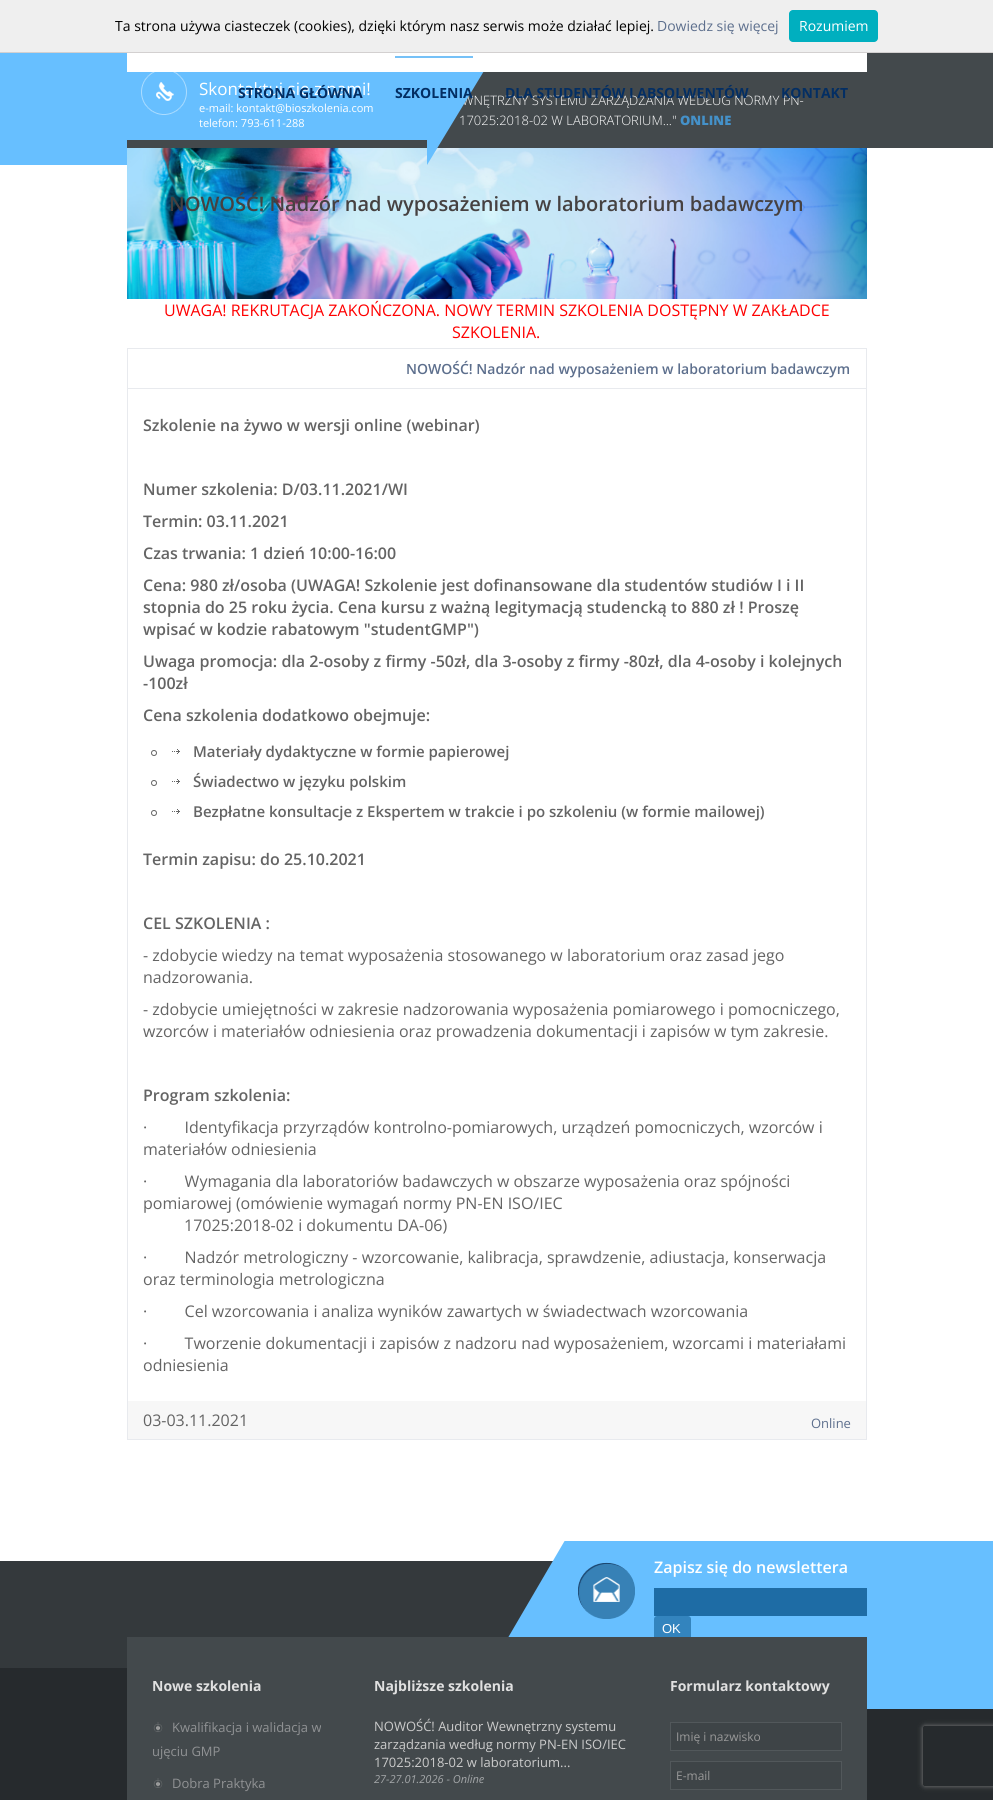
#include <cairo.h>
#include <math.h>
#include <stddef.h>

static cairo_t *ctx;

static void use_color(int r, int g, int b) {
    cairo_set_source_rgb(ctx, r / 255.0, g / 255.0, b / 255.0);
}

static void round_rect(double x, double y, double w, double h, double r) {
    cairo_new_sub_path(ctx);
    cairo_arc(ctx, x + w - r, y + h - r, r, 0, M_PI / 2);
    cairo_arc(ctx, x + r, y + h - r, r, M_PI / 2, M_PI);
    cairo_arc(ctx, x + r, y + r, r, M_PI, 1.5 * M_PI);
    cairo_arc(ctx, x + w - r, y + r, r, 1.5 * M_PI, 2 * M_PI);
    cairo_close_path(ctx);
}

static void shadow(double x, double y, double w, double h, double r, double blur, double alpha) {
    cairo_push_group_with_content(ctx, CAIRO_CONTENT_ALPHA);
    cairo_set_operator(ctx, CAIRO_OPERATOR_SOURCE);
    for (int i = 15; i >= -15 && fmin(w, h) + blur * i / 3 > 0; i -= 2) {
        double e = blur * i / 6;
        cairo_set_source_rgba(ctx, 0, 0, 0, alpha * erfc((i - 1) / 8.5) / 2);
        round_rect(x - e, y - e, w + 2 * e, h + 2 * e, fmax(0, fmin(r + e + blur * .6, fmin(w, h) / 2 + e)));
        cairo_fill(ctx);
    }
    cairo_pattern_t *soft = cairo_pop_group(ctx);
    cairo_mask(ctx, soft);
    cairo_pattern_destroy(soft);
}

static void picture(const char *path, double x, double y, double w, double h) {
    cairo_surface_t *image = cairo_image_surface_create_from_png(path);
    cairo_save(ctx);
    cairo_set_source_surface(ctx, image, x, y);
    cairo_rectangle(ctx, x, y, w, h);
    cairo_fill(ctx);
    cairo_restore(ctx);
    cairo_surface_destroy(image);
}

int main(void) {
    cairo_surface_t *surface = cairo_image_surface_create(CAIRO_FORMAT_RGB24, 993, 1800);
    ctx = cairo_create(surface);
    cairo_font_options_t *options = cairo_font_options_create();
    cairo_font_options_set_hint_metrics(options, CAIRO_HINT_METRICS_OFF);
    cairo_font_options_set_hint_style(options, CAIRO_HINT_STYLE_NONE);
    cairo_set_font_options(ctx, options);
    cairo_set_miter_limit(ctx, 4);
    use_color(255, 255, 255);
    cairo_paint(ctx);
    use_color(67, 73, 76);
    cairo_rectangle(ctx, 127, 53, 866, 95);
    cairo_fill(ctx);
    cairo_select_font_face(ctx, "Open Sans Light", CAIRO_FONT_SLANT_NORMAL, CAIRO_FONT_WEIGHT_NORMAL);
    cairo_set_font_size(ctx, 13);
    use_color(255, 255, 255);
    cairo_move_to(ctx, 462, 105);
    cairo_show_text(ctx, "WNĘTRZNY SYSTEMU ZARZĄDZANIA WEDŁUG NORMY PN-");
    cairo_move_to(ctx, 459, 125);
    cairo_show_text(ctx, "17025:2018-02 W LABORATORIUM...\"");
    picture("img2.png", 127, 148, 740, 151);
    use_color(103, 191, 255);
    cairo_new_path(ctx);
    cairo_move_to(ctx, 427, 0);
    cairo_line_to(ctx, 527, 0);
    cairo_line_to(ctx, 427, 165);
    cairo_close_path(ctx);
    cairo_fill(ctx);
    use_color(239, 239, 239);
    cairo_rectangle(ctx, 0, 0, 993, 52);
    cairo_fill(ctx);
    use_color(211, 208, 208);
    cairo_rectangle(ctx, 0, 52, 993, 1);
    cairo_fill(ctx);
    cairo_select_font_face(ctx, "Open Sans", CAIRO_FONT_SLANT_NORMAL, CAIRO_FONT_WEIGHT_NORMAL);
    cairo_set_font_size(ctx, 14);
    use_color(0, 0, 0);
    cairo_move_to(ctx, 115, 31);
    cairo_show_text(ctx, "Ta strona używa ciasteczek (cookies), dzięki którym nasz serwis może działać lepiej.");
    use_color(93, 111, 141);
    cairo_move_to(ctx, 657, 31);
    cairo_show_text(ctx, "Dowiedz się więcej");
    use_color(0, 175, 191);
    round_rect(789, 10, 89, 32, 4);
    cairo_fill(ctx);
    use_color(255, 255, 255);
    cairo_move_to(ctx, 799, 31);
    cairo_show_text(ctx, "Rozumiem");
    use_color(103, 191, 255);
    cairo_rectangle(ctx, 0, 53, 127, 112);
    cairo_fill(ctx);
    cairo_rectangle(ctx, 127, 72, 300, 68);
    cairo_fill(ctx);
    picture("img1.png", 141, 72, 46, 43);
    cairo_set_font_size(ctx, 17);
    use_color(255, 255, 255);
    cairo_move_to(ctx, 199, 95);
    cairo_show_text(ctx, "Skontaktuj się z nami!");
    cairo_set_font_size(ctx, 11);
    cairo_move_to(ctx, 199, 112);
    cairo_show_text(ctx, "e-mail: kontakt@bioszkolenia.com");
    cairo_move_to(ctx, 199, 127);
    cairo_show_text(ctx, "telefon: 793-611-288");
    cairo_rectangle(ctx, 127, 53, 740, 19);
    cairo_fill(ctx);
    cairo_select_font_face(ctx, "Open Sans", CAIRO_FONT_SLANT_NORMAL, CAIRO_FONT_WEIGHT_BOLD);
    cairo_set_font_size(ctx, 14);
    use_color(3, 46, 99);
    cairo_move_to(ctx, 238, 98);
    cairo_show_text(ctx, "STRONA GŁÓWNA");
    cairo_move_to(ctx, 395, 98);
    cairo_show_text(ctx, "SZKOLENIA");
    use_color(118, 193, 247);
    cairo_rectangle(ctx, 395, 56, 78, 2);
    cairo_fill(ctx);
    use_color(3, 46, 99);
    cairo_move_to(ctx, 505, 98);
    cairo_show_text(ctx, "DLA STUDENTÓW I ABSOLWENTÓW");
    cairo_move_to(ctx, 781, 98);
    cairo_show_text(ctx, "KONTAKT");
    cairo_select_font_face(ctx, "Open Sans ExtraBold", CAIRO_FONT_SLANT_NORMAL, CAIRO_FONT_WEIGHT_NORMAL);
    cairo_set_font_size(ctx, 13);
    use_color(68, 145, 201);
    cairo_move_to(ctx, 680, 125);
    cairo_show_text(ctx, "ONLINE");
    cairo_select_font_face(ctx, "Open Sans SemiBold", CAIRO_FONT_SLANT_NORMAL, CAIRO_FONT_WEIGHT_NORMAL);
    cairo_set_font_size(ctx, 20);
    use_color(70, 65, 65);
    cairo_move_to(ctx, 169, 211);
    cairo_show_text(ctx, "NOWOŚĆ! Nadzór nad wyposażeniem w laboratorium badawczym");
    cairo_select_font_face(ctx, "Open Sans", CAIRO_FONT_SLANT_NORMAL, CAIRO_FONT_WEIGHT_NORMAL);
    cairo_set_font_size(ctx, 16);
    use_color(255, 0, 0);
    cairo_move_to(ctx, 164, 316);
    cairo_show_text(ctx, "UWAGA! REKRUTACJA ZAKOŃCZONA. NOWY TERMIN SZKOLENIA DOSTĘPNY W ZAKŁADCE");
    cairo_move_to(ctx, 452, 338);
    cairo_show_text(ctx, "SZKOLENIA.");
    cairo_rectangle(ctx, 127.5, 348.5, 739, 1091);
    use_color(232, 234, 238);
    cairo_set_line_width(ctx, 1);
    cairo_stroke(ctx);
    cairo_select_font_face(ctx, "Open Sans SemiBold", CAIRO_FONT_SLANT_NORMAL, CAIRO_FONT_WEIGHT_NORMAL);
    cairo_set_font_size(ctx, 14);
    use_color(93, 111, 141);
    cairo_move_to(ctx, 406, 374);
    cairo_show_text(ctx, "NOWOŚĆ! Nadzór nad wyposażeniem w laboratorium badawczym");
    use_color(232, 234, 238);
    cairo_rectangle(ctx, 128, 388, 738, 1);
    cairo_fill(ctx);
    cairo_set_font_size(ctx, 16);
    use_color(100, 100, 100);
    cairo_move_to(ctx, 143, 431);
    cairo_show_text(ctx, "Szkolenie na żywo w wersji online (webinar)");
    cairo_move_to(ctx, 143, 495);
    cairo_show_text(ctx, "Numer szkolenia: D/03.11.2021/WI");
    cairo_move_to(ctx, 143, 527);
    cairo_show_text(ctx, "Termin: 03.11.2021");
    cairo_move_to(ctx, 143, 559);
    cairo_show_text(ctx, "Czas trwania: 1 dzień 10:00-16:00");
    cairo_move_to(ctx, 143, 591);
    cairo_show_text(ctx, "Cena: 980 zł/osoba (UWAGA! Szkolenie jest dofinansowane dla studentów studiów I i II");
    cairo_move_to(ctx, 143, 613);
    cairo_show_text(ctx, "stopnia do 25 roku życia. Cena kursu z ważną legitymacją studencką to 880 zł ! Proszę");
    cairo_move_to(ctx, 143, 635);
    cairo_show_text(ctx, "wpisać w kodzie rabatowym \"studentGMP\")");
    cairo_move_to(ctx, 143, 667);
    cairo_show_text(ctx, "Uwaga promocja: dla 2-osoby z firmy -50zł, dla 3-osoby z firmy -80zł, dla 4-osoby i kolejnych");
    cairo_move_to(ctx, 143, 689);
    cairo_show_text(ctx, "-100zł");
    cairo_move_to(ctx, 143, 721);
    cairo_show_text(ctx, "Cena szkolenia dodatkowo obejmuje:");
    picture("img3.png", 172, 749, 8, 5);
    cairo_arc(ctx, 154, 753, 2.5, 0, 2 * M_PI);
    cairo_stroke(ctx);
    cairo_set_font_size(ctx, 15);
    cairo_move_to(ctx, 193, 757);
    cairo_show_text(ctx, "Materiały dydaktyczne w formie papierowej");
    picture("img3.png", 172, 779, 8, 5);
    cairo_arc(ctx, 154, 783, 2.5, 0, 2 * M_PI);
    cairo_stroke(ctx);
    cairo_move_to(ctx, 193, 787);
    cairo_show_text(ctx, "Świadectwo w języku polskim");
    picture("img3.png", 172, 809, 8, 5);
    cairo_arc(ctx, 154, 813, 2.5, 0, 2 * M_PI);
    cairo_stroke(ctx);
    cairo_move_to(ctx, 193, 817);
    cairo_show_text(ctx, "Bezpłatne konsultacje z Ekspertem w trakcie i po szkoleniu (w formie mailowej)");
    cairo_set_font_size(ctx, 16);
    cairo_move_to(ctx, 143, 865);
    cairo_show_text(ctx, "Termin zapisu: do 25.10.2021");
    cairo_move_to(ctx, 143, 929);
    cairo_show_text(ctx, "CEL SZKOLENIA :");
    cairo_select_font_face(ctx, "Open Sans", CAIRO_FONT_SLANT_NORMAL, CAIRO_FONT_WEIGHT_NORMAL);
    cairo_move_to(ctx, 143, 961);
    cairo_show_text(ctx, "- zdobycie wiedzy na temat wyposażenia stosowanego w laboratorium oraz zasad jego");
    cairo_move_to(ctx, 143, 983);
    cairo_show_text(ctx, "nadzorowania.");
    cairo_move_to(ctx, 143, 1015);
    cairo_show_text(ctx, "- zdobycie umiejętności w zakresie nadzorowania wyposażenia pomiarowego i pomocniczego,");
    cairo_move_to(ctx, 143, 1037);
    cairo_show_text(ctx, "wzorców i materiałów odniesienia oraz prowadzenia dokumentacji i zapisów w tym zakresie.");
    cairo_select_font_face(ctx, "Open Sans SemiBold", CAIRO_FONT_SLANT_NORMAL, CAIRO_FONT_WEIGHT_NORMAL);
    cairo_move_to(ctx, 143, 1101);
    cairo_show_text(ctx, "Program szkolenia:");
    cairo_select_font_face(ctx, "Open Sans", CAIRO_FONT_SLANT_NORMAL, CAIRO_FONT_WEIGHT_NORMAL);
    cairo_move_to(ctx, 143, 1133);
    cairo_show_text(ctx, "·         Identyfikacja przyrządów kontrolno-pomiarowych, urządzeń pomocniczych, wzorców i");
    cairo_move_to(ctx, 143, 1155);
    cairo_show_text(ctx, "materiałów odniesienia");
    cairo_move_to(ctx, 143, 1187);
    cairo_show_text(ctx, "·         Wymagania dla laboratoriów badawczych w obszarze wyposażenia oraz spójności");
    cairo_move_to(ctx, 143, 1209);
    cairo_show_text(ctx, "pomiarowej (omówienie wymagań normy PN-EN ISO/IEC");
    cairo_move_to(ctx, 184, 1231);
    cairo_show_text(ctx, "17025:2018-02 i dokumentu DA-06)");
    cairo_move_to(ctx, 143, 1263);
    cairo_show_text(ctx, "·         Nadzór metrologiczny - wzorcowanie, kalibracja, sprawdzenie, adiustacja, konserwacja");
    cairo_move_to(ctx, 143, 1285);
    cairo_show_text(ctx, "oraz terminologia metrologiczna");
    cairo_move_to(ctx, 143, 1317);
    cairo_show_text(ctx, "·         Cel wzorcowania i analiza wyników zawartych w świadectwach wzorcowania");
    cairo_move_to(ctx, 143, 1349);
    cairo_show_text(ctx, "·         Tworzenie dokumentacji i zapisów z nadzoru nad wyposażeniem, wzorcami i materiałami");
    cairo_move_to(ctx, 143, 1371);
    cairo_show_text(ctx, "odniesienia");
    use_color(247, 247, 247);
    cairo_rectangle(ctx, 128, 1401, 738, 38);
    cairo_fill(ctx);
    use_color(100, 100, 100);
    cairo_move_to(ctx, 143, 1426);
    cairo_show_text(ctx, "03-03.11.2021");
    cairo_set_font_size(ctx, 13);
    use_color(93, 111, 141);
    cairo_move_to(ctx, 811, 1428);
    cairo_show_text(ctx, "Online");
    use_color(52, 57, 60);
    cairo_rectangle(ctx, 0, 1561, 553, 107);
    cairo_fill(ctx);
    use_color(38, 42, 45);
    cairo_rectangle(ctx, 0, 1668, 993, 132);
    cairo_fill(ctx);
    cairo_save(ctx);
    cairo_rectangle(ctx, 0, 1541, 993, 170);
    cairo_clip(ctx);
    use_color(103, 191, 255);
    cairo_new_path(ctx);
    cairo_move_to(ctx, 578, 1689);
    cairo_line_to(ctx, 478, 1689);
    cairo_line_to(ctx, 578, 1518);
    cairo_close_path(ctx);
    cairo_fill(ctx);
    cairo_restore(ctx);
    use_color(103, 191, 255);
    cairo_rectangle(ctx, 578, 1541, 289, 96);
    cairo_fill(ctx);
    picture("img4.png", 578, 1562, 57, 57);
    cairo_select_font_face(ctx, "Open Sans SemiBold", CAIRO_FONT_SLANT_NORMAL, CAIRO_FONT_WEIGHT_NORMAL);
    cairo_set_font_size(ctx, 16);
    use_color(255, 255, 255);
    cairo_move_to(ctx, 654, 1573);
    cairo_show_text(ctx, "Zapisz się do newslettera");
    use_color(30, 108, 165);
    cairo_rectangle(ctx, 654, 1588, 213, 28);
    cairo_fill(ctx);
    use_color(51, 132, 190);
    round_rect(654, 1616, 37, 25, 3);
    cairo_fill(ctx);
    cairo_select_font_face(ctx, "Liberation Sans", CAIRO_FONT_SLANT_NORMAL, CAIRO_FONT_WEIGHT_NORMAL);
    cairo_set_font_size(ctx, 13);
    use_color(255, 255, 255);
    cairo_move_to(ctx, 662, 1633);
    cairo_show_text(ctx, "OK");
    use_color(103, 191, 255);
    cairo_rectangle(ctx, 867, 1541, 126, 168);
    cairo_fill(ctx);
    use_color(67, 73, 76);
    cairo_rectangle(ctx, 127, 1637, 740, 163);
    cairo_fill(ctx);
    cairo_select_font_face(ctx, "Open Sans", CAIRO_FONT_SLANT_NORMAL, CAIRO_FONT_WEIGHT_BOLD);
    cairo_set_font_size(ctx, 14);
    use_color(224, 224, 224);
    cairo_move_to(ctx, 152, 1691);
    cairo_show_text(ctx, "Nowe szkolenia");
    picture("img5.png", 153, 1722, 10, 10);
    cairo_select_font_face(ctx, "Open Sans", CAIRO_FONT_SLANT_NORMAL, CAIRO_FONT_WEIGHT_NORMAL);
    cairo_set_font_size(ctx, 13);
    use_color(144, 146, 148);
    cairo_move_to(ctx, 172, 1732);
    cairo_show_text(ctx, "Kwalifikacja i walidacja w");
    cairo_move_to(ctx, 152, 1756);
    cairo_show_text(ctx, "ujęciu GMP");
    picture("img5.png", 153, 1778, 10, 10);
    cairo_move_to(ctx, 172, 1788);
    cairo_show_text(ctx, "Dobra Praktyka");
    cairo_select_font_face(ctx, "Open Sans", CAIRO_FONT_SLANT_NORMAL, CAIRO_FONT_WEIGHT_BOLD);
    cairo_set_font_size(ctx, 14);
    use_color(224, 224, 224);
    cairo_move_to(ctx, 374, 1691);
    cairo_show_text(ctx, "Najbliższe szkolenia");
    cairo_select_font_face(ctx, "Open Sans", CAIRO_FONT_SLANT_NORMAL, CAIRO_FONT_WEIGHT_NORMAL);
    cairo_set_font_size(ctx, 13);
    use_color(203, 203, 203);
    cairo_move_to(ctx, 374, 1731);
    cairo_show_text(ctx, "NOWOŚĆ! Auditor Wewnętrzny systemu");
    cairo_move_to(ctx, 374, 1749);
    cairo_show_text(ctx, "zarządzania według normy PN-EN ISO/IEC");
    cairo_move_to(ctx, 374, 1767);
    cairo_show_text(ctx, "17025:2018-02 w laboratorium...");
    cairo_select_font_face(ctx, "Open Sans", CAIRO_FONT_SLANT_ITALIC, CAIRO_FONT_WEIGHT_NORMAL);
    cairo_set_font_size(ctx, 11);
    use_color(162, 165, 167);
    cairo_move_to(ctx, 374, 1783);
    cairo_show_text(ctx, "27-27.01.2026 - Online");
    cairo_select_font_face(ctx, "Open Sans", CAIRO_FONT_SLANT_NORMAL, CAIRO_FONT_WEIGHT_BOLD);
    cairo_set_font_size(ctx, 14);
    use_color(224, 224, 224);
    cairo_move_to(ctx, 670, 1691);
    cairo_show_text(ctx, "Formularz kontaktowy");
    use_color(62, 68, 71);
    cairo_rectangle(ctx, 670.5, 1722.5, 171, 28);
    cairo_fill_preserve(ctx);
    use_color(82, 88, 91);
    cairo_stroke(ctx);
    cairo_select_font_face(ctx, "Open Sans", CAIRO_FONT_SLANT_NORMAL, CAIRO_FONT_WEIGHT_NORMAL);
    cairo_set_font_size(ctx, 12);
    use_color(153, 153, 153);
    cairo_move_to(ctx, 676, 1741);
    cairo_show_text(ctx, "Imię i nazwisko");
    use_color(62, 68, 71);
    cairo_rectangle(ctx, 670.5, 1761.5, 171, 28);
    cairo_fill_preserve(ctx);
    use_color(82, 88, 91);
    cairo_stroke(ctx);
    use_color(153, 153, 153);
    cairo_move_to(ctx, 676, 1780);
    cairo_show_text(ctx, "E-mail");
    cairo_save(ctx);
    cairo_set_fill_rule(ctx, CAIRO_FILL_RULE_EVEN_ODD);
    cairo_new_path(ctx);
    cairo_move_to(ctx, 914, 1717);
    cairo_line_to(ctx, 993, 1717);
    cairo_line_to(ctx, 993, 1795);
    cairo_line_to(ctx, 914, 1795);
    cairo_close_path(ctx);
    cairo_move_to(ctx, 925, 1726);
    cairo_line_to(ctx, 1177, 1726);
    cairo_curve_to(ctx, 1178, 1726, 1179, 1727, 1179, 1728);
    cairo_line_to(ctx, 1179, 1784);
    cairo_curve_to(ctx, 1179, 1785, 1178, 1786, 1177, 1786);
    cairo_line_to(ctx, 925, 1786);
    cairo_curve_to(ctx, 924, 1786, 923, 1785, 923, 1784);
    cairo_line_to(ctx, 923, 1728);
    cairo_curve_to(ctx, 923, 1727, 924, 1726, 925, 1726);
    cairo_close_path(ctx);
    cairo_clip(ctx);
    use_color(128, 128, 128);
    shadow(923, 1726, 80, 60, 2, 2.5, 1);
    cairo_restore(ctx);
    cairo_surface_write_to_png(surface, "result.png");
    cairo_font_options_destroy(options);
    cairo_destroy(ctx);
    cairo_surface_destroy(surface);
    return 0;
}
